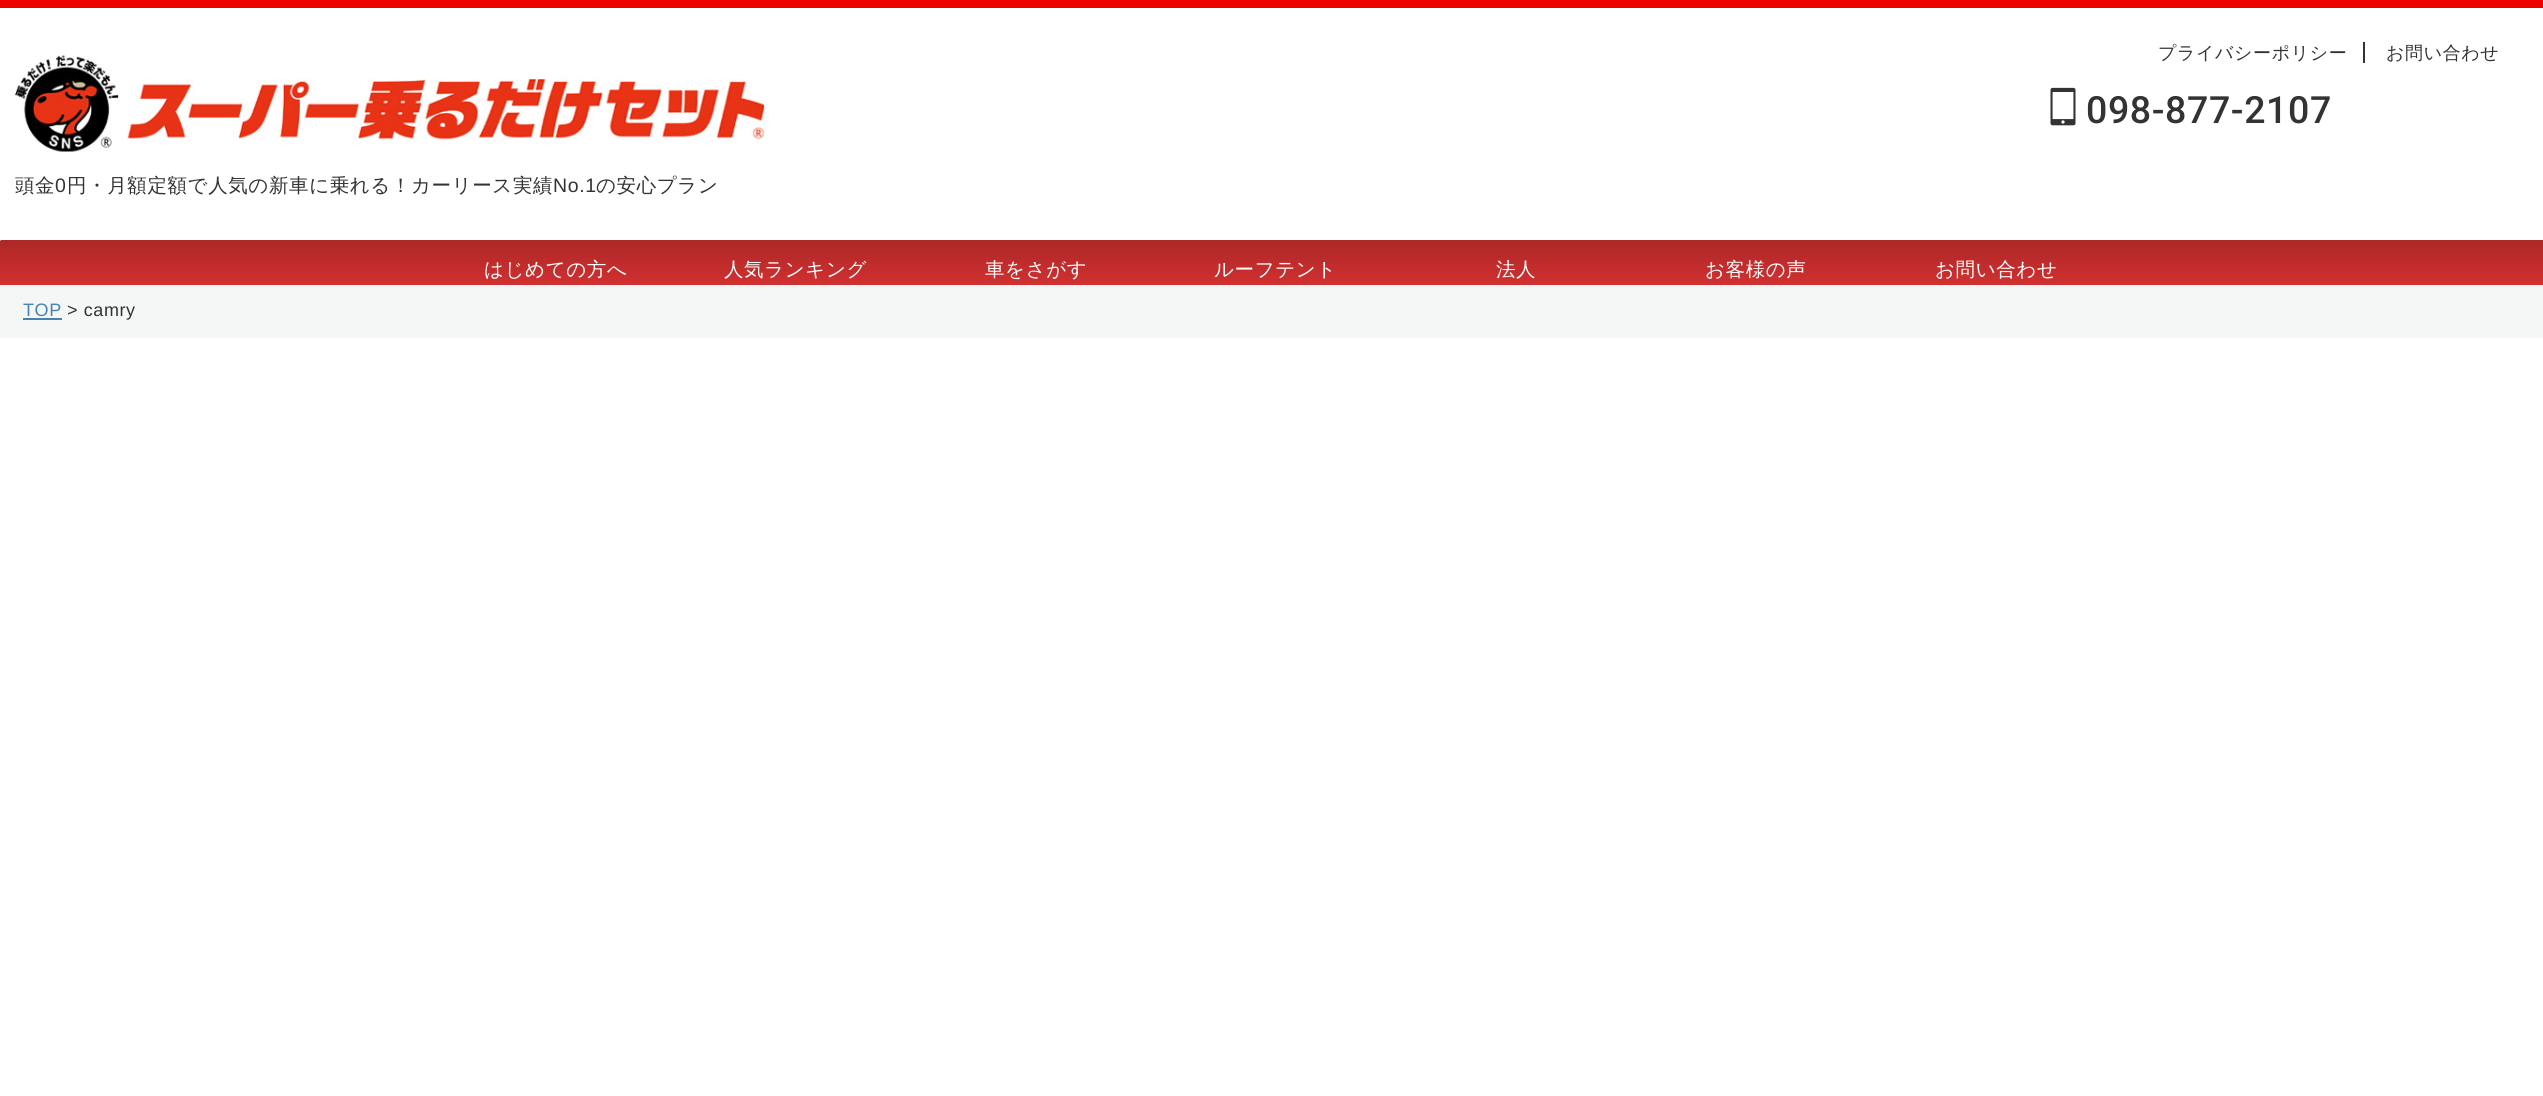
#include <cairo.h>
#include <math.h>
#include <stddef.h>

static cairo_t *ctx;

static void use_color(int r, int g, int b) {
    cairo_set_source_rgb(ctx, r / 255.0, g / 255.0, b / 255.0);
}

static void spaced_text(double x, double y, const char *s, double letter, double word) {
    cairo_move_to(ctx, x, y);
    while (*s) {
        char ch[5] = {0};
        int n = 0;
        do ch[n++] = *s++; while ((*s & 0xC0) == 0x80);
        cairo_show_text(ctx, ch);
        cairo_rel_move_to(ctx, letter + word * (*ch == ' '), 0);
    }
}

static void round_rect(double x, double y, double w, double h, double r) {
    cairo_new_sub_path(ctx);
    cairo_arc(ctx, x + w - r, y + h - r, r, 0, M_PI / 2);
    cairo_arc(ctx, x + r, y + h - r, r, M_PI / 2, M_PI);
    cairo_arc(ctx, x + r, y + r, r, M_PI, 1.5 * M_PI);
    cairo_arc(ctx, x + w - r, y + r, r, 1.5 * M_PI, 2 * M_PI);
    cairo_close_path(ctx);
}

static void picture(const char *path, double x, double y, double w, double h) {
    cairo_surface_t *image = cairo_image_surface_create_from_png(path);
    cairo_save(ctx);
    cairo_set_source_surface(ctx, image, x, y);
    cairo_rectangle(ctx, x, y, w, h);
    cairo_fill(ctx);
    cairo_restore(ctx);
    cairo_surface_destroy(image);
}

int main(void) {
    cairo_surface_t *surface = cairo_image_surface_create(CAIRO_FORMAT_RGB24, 2543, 1096);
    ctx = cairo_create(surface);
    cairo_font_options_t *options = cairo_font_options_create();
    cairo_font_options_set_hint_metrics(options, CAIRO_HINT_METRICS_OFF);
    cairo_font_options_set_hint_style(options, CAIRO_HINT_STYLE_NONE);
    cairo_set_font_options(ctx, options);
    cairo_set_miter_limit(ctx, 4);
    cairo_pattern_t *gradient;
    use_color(255, 255, 255);
    cairo_paint(ctx);
    use_color(237, 0, 0);
    cairo_rectangle(ctx, 0, 0, 2543, 8);
    cairo_fill(ctx);
    cairo_select_font_face(ctx, "WenQuanYi Zen Hei Medium", CAIRO_FONT_SLANT_NORMAL, CAIRO_FONT_WEIGHT_NORMAL);
    cairo_set_font_size(ctx, 18);
    use_color(51, 51, 51);
    spaced_text(2158, 59, "プライバシーポリシー", 0.6, 0);
    cairo_rectangle(ctx, 2363, 42, 2, 21);
    cairo_fill(ctx);
    spaced_text(2386, 59, "お問い合わせ", 0.6, 0);
    picture("img1.png", 2050, 87, 26, 39);
    cairo_select_font_face(ctx, "Roboto Medium", CAIRO_FONT_SLANT_NORMAL, CAIRO_FONT_WEIGHT_NORMAL);
    cairo_set_font_size(ctx, 37.5);
    spaced_text(2086, 123, "098-877-2107", 0.6, 0);
    picture("img2.png", 15, 55, 750, 97);
    cairo_select_font_face(ctx, "WenQuanYi Zen Hei Medium", CAIRO_FONT_SLANT_NORMAL, CAIRO_FONT_WEIGHT_NORMAL);
    cairo_set_font_size(ctx, 19.5);
    spaced_text(15, 192, "頭金", 0.6, 0);
    cairo_select_font_face(ctx, "Liberation Sans", CAIRO_FONT_SLANT_NORMAL, CAIRO_FONT_WEIGHT_NORMAL);
    spaced_text(55, 192, "0", 0.6, 0);
    cairo_select_font_face(ctx, "WenQuanYi Zen Hei Medium", CAIRO_FONT_SLANT_NORMAL, CAIRO_FONT_WEIGHT_NORMAL);
    spaced_text(67, 192, "円・月額定額で人気の新車に乗れる！カーリース実績", 0.6, 0);
    cairo_select_font_face(ctx, "Liberation Sans", CAIRO_FONT_SLANT_NORMAL, CAIRO_FONT_WEIGHT_NORMAL);
    spaced_text(553, 192, "No.1", 0.6, 0);
    cairo_select_font_face(ctx, "WenQuanYi Zen Hei Medium", CAIRO_FONT_SLANT_NORMAL, CAIRO_FONT_WEIGHT_NORMAL);
    spaced_text(596, 192, "の安心プラン", 0.6, 0);
    gradient = cairo_pattern_create_linear(1272, 240, 1272, 300);
    cairo_pattern_add_color_stop_rgba(gradient, 0, 0.678, 0.153, 0.153, 1);
    cairo_pattern_add_color_stop_rgba(gradient, 1, 0.867, 0.2, 0.2, 1);
    cairo_set_source(ctx, gradient);
    cairo_pattern_destroy(gradient);
    round_rect(0, 240, 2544, 60, 1.5);
    cairo_fill(ctx);
    use_color(255, 255, 255);
    spaced_text(484, 276, "はじめての方へ", 0.6, 0);
    spaced_text(724, 276, "人気ランキング", 0.6, 0);
    spaced_text(985, 276, "車をさがす", 0.6, 0);
    spaced_text(1214, 276, "ルーフテント", 0.6, 0);
    spaced_text(1496, 276, "法人", 0.6, 0);
    spaced_text(1705, 276, "お客様の声", 0.6, 0);
    spaced_text(1935, 276, "お問い合わせ", 0.6, 0);
    use_color(245, 246, 246);
    cairo_rectangle(ctx, 0, 285, 2543, 53);
    cairo_fill(ctx);
    cairo_select_font_face(ctx, "Liberation Sans", CAIRO_FONT_SLANT_NORMAL, CAIRO_FONT_WEIGHT_NORMAL);
    cairo_set_font_size(ctx, 18);
    use_color(70, 130, 180);
    spaced_text(23, 316, "TOP", 0.6, 0);
    cairo_rectangle(ctx, 23, 318, 39, 2);
    cairo_fill(ctx);
    use_color(51, 51, 51);
    spaced_text(67, 316, "> camry", 0.6, 0);
    cairo_surface_write_to_png(surface, "result.png");
    cairo_font_options_destroy(options);
    cairo_destroy(ctx);
    cairo_surface_destroy(surface);
    return 0;
}
